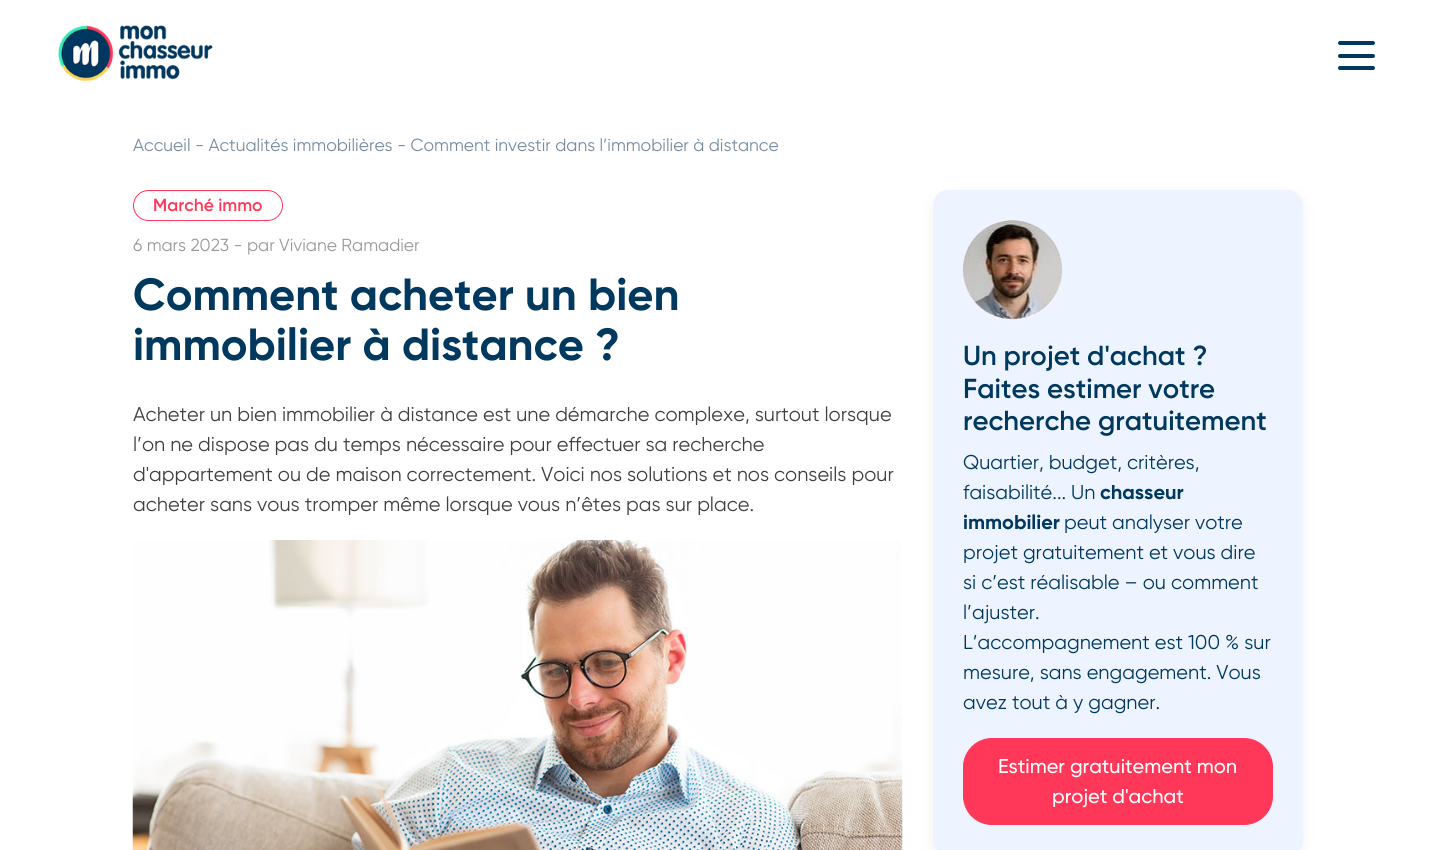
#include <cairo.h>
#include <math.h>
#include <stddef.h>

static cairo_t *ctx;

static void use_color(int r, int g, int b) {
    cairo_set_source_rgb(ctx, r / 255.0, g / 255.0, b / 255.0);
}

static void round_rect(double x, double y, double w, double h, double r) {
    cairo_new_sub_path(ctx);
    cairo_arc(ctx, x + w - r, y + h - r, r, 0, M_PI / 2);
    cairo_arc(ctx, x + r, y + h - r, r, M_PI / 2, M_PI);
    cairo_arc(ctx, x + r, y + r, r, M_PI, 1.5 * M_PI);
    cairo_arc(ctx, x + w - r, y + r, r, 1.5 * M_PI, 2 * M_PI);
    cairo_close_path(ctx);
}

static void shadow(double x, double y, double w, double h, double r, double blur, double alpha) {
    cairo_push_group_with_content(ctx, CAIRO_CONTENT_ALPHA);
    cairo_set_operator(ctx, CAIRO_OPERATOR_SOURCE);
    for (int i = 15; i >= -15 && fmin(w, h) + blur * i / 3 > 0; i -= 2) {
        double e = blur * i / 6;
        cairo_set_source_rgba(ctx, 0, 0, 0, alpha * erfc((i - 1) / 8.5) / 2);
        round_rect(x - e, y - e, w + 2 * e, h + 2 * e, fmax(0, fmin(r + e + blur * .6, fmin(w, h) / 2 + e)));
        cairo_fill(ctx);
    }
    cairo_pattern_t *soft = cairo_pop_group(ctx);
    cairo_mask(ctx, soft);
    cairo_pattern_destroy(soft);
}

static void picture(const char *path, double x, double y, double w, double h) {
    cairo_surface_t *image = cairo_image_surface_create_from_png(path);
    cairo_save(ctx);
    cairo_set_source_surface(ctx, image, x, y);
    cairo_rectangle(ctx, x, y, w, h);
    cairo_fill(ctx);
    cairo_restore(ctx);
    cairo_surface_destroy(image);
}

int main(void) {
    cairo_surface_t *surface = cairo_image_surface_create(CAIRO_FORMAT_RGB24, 1435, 850);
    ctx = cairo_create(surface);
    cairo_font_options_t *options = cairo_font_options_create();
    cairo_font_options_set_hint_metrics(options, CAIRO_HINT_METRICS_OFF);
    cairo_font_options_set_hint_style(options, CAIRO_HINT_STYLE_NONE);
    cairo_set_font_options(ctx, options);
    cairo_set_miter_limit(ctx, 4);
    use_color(255, 255, 255);
    cairo_paint(ctx);
    picture("img1.png", 58, 25, 155, 57);
    use_color(0, 56, 94);
    round_rect(1338, 41, 37, 4, 2);
    cairo_fill(ctx);
    round_rect(1338, 54, 37, 4, 2);
    cairo_fill(ctx);
    round_rect(1338, 66, 37, 4, 2);
    cairo_fill(ctx);
    cairo_select_font_face(ctx, "Gilroy", CAIRO_FONT_SLANT_NORMAL, CAIRO_FONT_WEIGHT_NORMAL);
    cairo_set_font_size(ctx, 17.5);
    use_color(120, 140, 160);
    cairo_move_to(ctx, 133, 151);
    cairo_show_text(ctx, "Accueil - Actualités immobilières - Comment investir dans l’immobilier à distance");
    round_rect(133.5, 190.5, 149, 30, 15);
    use_color(255, 56, 89);
    cairo_set_line_width(ctx, 1);
    cairo_stroke(ctx);
    cairo_select_font_face(ctx, "Gilroy SemiBold", CAIRO_FONT_SLANT_NORMAL, CAIRO_FONT_WEIGHT_NORMAL);
    cairo_move_to(ctx, 153, 211);
    cairo_show_text(ctx, "Marché immo");
    cairo_select_font_face(ctx, "Gilroy", CAIRO_FONT_SLANT_NORMAL, CAIRO_FONT_WEIGHT_NORMAL);
    use_color(153, 153, 153);
    cairo_move_to(ctx, 133, 251);
    cairo_show_text(ctx, "6 mars 2023 - par Viviane Ramadier");
    cairo_select_font_face(ctx, "Gilroy", CAIRO_FONT_SLANT_NORMAL, CAIRO_FONT_WEIGHT_BOLD);
    cairo_set_font_size(ctx, 45);
    use_color(0, 56, 94);
    cairo_move_to(ctx, 133, 310);
    cairo_show_text(ctx, "Comment acheter un bien");
    cairo_move_to(ctx, 133, 360);
    cairo_show_text(ctx, "immobilier à distance ?");
    cairo_select_font_face(ctx, "Gilroy", CAIRO_FONT_SLANT_NORMAL, CAIRO_FONT_WEIGHT_NORMAL);
    cairo_set_font_size(ctx, 20);
    use_color(64, 64, 64);
    cairo_move_to(ctx, 133, 421);
    cairo_show_text(ctx, "Acheter un bien immobilier à distance est une démarche complexe, surtout lorsque");
    cairo_move_to(ctx, 133, 451);
    cairo_show_text(ctx, "l’on ne dispose pas du temps nécessaire pour effectuer sa recherche");
    cairo_move_to(ctx, 133, 481);
    cairo_show_text(ctx, "d'appartement ou de maison correctement. Voici nos solutions et nos conseils pour");
    cairo_move_to(ctx, 133, 511);
    cairo_show_text(ctx, "acheter sans vous tromper même lorsque vous n’êtes pas sur place.");
    picture("img2.png", 132, 540, 771, 310);
    use_color(0, 0, 0);
    shadow(933, 195, 370, 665, 15, 7.5, 0.06);
    use_color(238, 244, 255);
    round_rect(933, 190, 370, 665, 15);
    cairo_fill(ctx);
    picture("img3.png", 962, 220, 101, 100);
    cairo_select_font_face(ctx, "Gilroy SemiBold", CAIRO_FONT_SLANT_NORMAL, CAIRO_FONT_WEIGHT_NORMAL);
    cairo_set_font_size(ctx, 27.5);
    use_color(0, 56, 94);
    cairo_move_to(ctx, 963, 365);
    cairo_show_text(ctx, "Un projet d'achat ?");
    cairo_move_to(ctx, 963, 398);
    cairo_show_text(ctx, "Faites estimer votre");
    cairo_move_to(ctx, 963, 430);
    cairo_show_text(ctx, "recherche gratuitement");
    cairo_select_font_face(ctx, "Gilroy", CAIRO_FONT_SLANT_NORMAL, CAIRO_FONT_WEIGHT_NORMAL);
    cairo_set_font_size(ctx, 20);
    cairo_move_to(ctx, 963, 469);
    cairo_show_text(ctx, "Quartier, budget, critères,");
    cairo_move_to(ctx, 963, 499);
    cairo_show_text(ctx, "faisabilité... Un");
    cairo_select_font_face(ctx, "Gilroy", CAIRO_FONT_SLANT_NORMAL, CAIRO_FONT_WEIGHT_BOLD);
    cairo_move_to(ctx, 1100, 499);
    cairo_show_text(ctx, "chasseur");
    cairo_move_to(ctx, 963, 529);
    cairo_show_text(ctx, "immobilier");
    cairo_select_font_face(ctx, "Gilroy", CAIRO_FONT_SLANT_NORMAL, CAIRO_FONT_WEIGHT_NORMAL);
    cairo_move_to(ctx, 1064, 529);
    cairo_show_text(ctx, "peut analyser votre");
    cairo_move_to(ctx, 963, 559);
    cairo_show_text(ctx, "projet gratuitement et vous dire");
    cairo_move_to(ctx, 963, 589);
    cairo_show_text(ctx, "si c’est réalisable – ou comment");
    cairo_move_to(ctx, 963, 619);
    cairo_show_text(ctx, "l’ajuster.");
    cairo_move_to(ctx, 963, 649);
    cairo_show_text(ctx, "L’accompagnement est 100 % sur");
    cairo_move_to(ctx, 963, 679);
    cairo_show_text(ctx, "mesure, sans engagement. Vous");
    cairo_move_to(ctx, 963, 709);
    cairo_show_text(ctx, "avez tout à y gagner.");
    use_color(255, 56, 89);
    round_rect(963.5, 738.5, 309, 86, 28.5);
    cairo_fill_preserve(ctx);
    cairo_stroke(ctx);
    cairo_select_font_face(ctx, "Gilroy Medium", CAIRO_FONT_SLANT_NORMAL, CAIRO_FONT_WEIGHT_NORMAL);
    use_color(255, 255, 255);
    cairo_move_to(ctx, 998, 773);
    cairo_show_text(ctx, "Estimer gratuitement mon");
    cairo_move_to(ctx, 1052, 803);
    cairo_show_text(ctx, "projet d'achat");
    cairo_surface_write_to_png(surface, "result.png");
    cairo_font_options_destroy(options);
    cairo_destroy(ctx);
    cairo_surface_destroy(surface);
    return 0;
}
